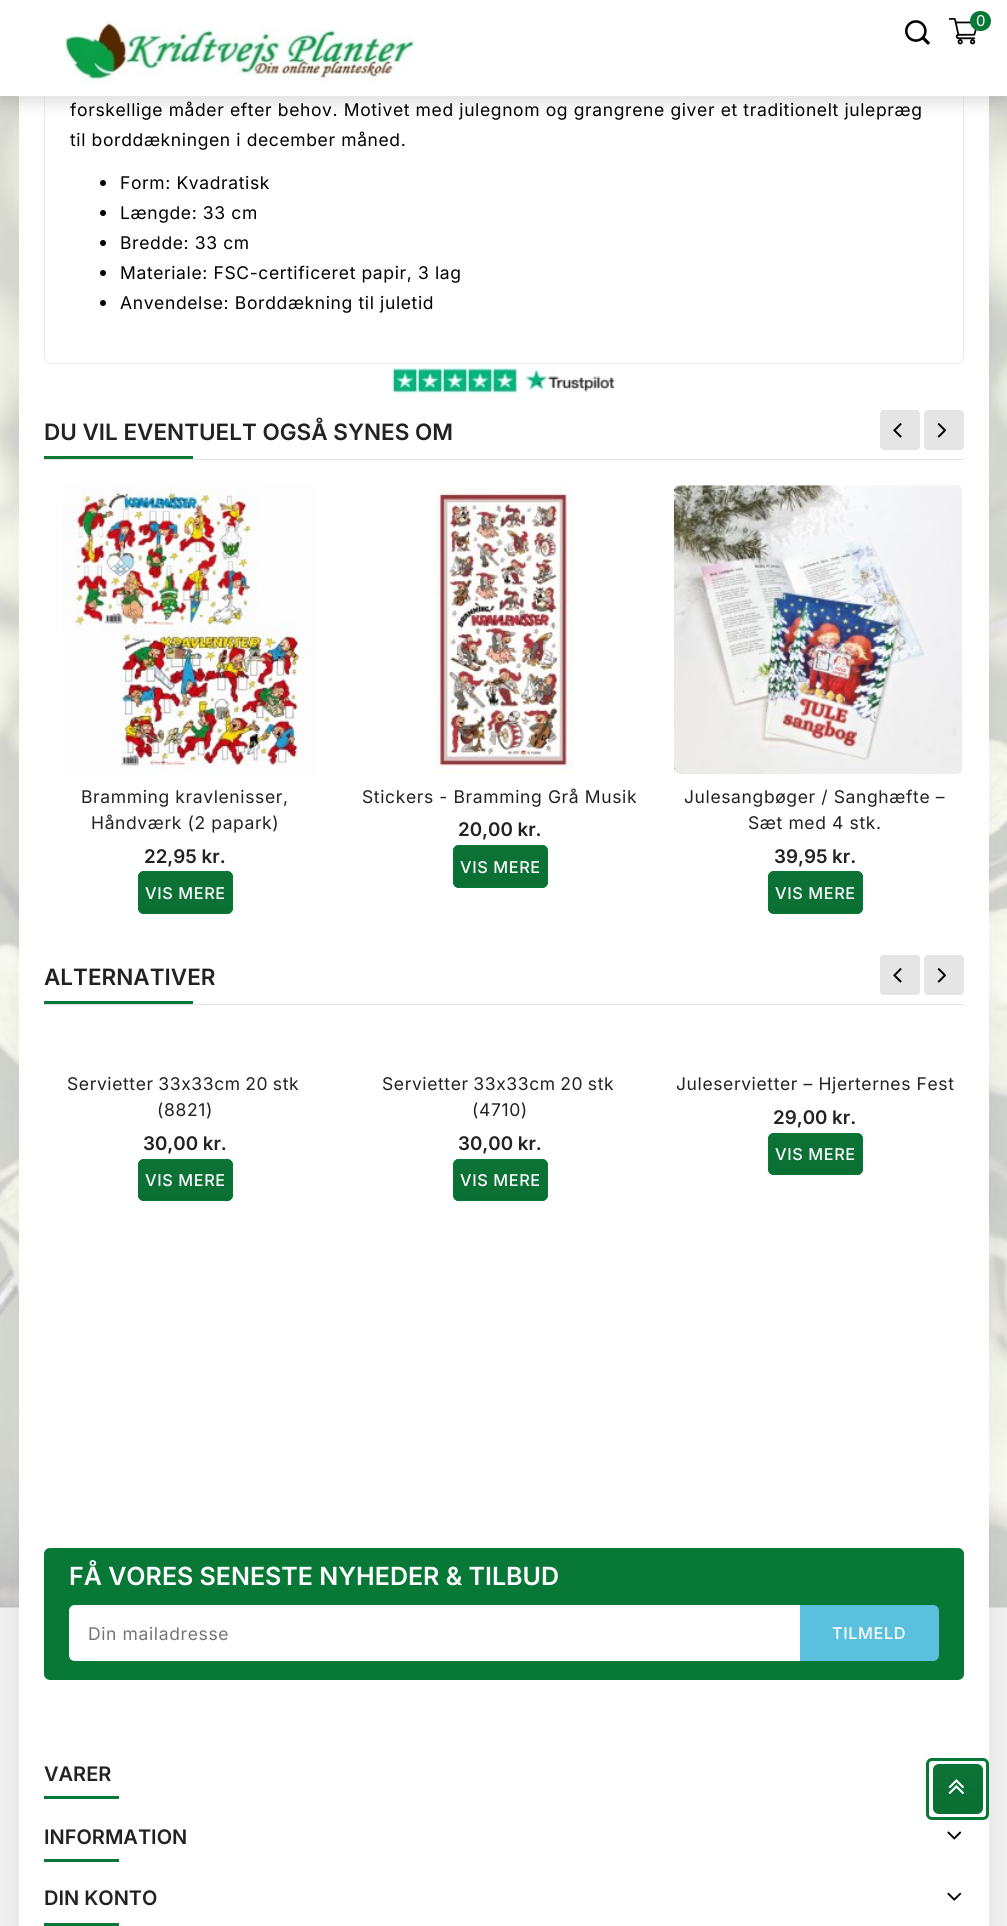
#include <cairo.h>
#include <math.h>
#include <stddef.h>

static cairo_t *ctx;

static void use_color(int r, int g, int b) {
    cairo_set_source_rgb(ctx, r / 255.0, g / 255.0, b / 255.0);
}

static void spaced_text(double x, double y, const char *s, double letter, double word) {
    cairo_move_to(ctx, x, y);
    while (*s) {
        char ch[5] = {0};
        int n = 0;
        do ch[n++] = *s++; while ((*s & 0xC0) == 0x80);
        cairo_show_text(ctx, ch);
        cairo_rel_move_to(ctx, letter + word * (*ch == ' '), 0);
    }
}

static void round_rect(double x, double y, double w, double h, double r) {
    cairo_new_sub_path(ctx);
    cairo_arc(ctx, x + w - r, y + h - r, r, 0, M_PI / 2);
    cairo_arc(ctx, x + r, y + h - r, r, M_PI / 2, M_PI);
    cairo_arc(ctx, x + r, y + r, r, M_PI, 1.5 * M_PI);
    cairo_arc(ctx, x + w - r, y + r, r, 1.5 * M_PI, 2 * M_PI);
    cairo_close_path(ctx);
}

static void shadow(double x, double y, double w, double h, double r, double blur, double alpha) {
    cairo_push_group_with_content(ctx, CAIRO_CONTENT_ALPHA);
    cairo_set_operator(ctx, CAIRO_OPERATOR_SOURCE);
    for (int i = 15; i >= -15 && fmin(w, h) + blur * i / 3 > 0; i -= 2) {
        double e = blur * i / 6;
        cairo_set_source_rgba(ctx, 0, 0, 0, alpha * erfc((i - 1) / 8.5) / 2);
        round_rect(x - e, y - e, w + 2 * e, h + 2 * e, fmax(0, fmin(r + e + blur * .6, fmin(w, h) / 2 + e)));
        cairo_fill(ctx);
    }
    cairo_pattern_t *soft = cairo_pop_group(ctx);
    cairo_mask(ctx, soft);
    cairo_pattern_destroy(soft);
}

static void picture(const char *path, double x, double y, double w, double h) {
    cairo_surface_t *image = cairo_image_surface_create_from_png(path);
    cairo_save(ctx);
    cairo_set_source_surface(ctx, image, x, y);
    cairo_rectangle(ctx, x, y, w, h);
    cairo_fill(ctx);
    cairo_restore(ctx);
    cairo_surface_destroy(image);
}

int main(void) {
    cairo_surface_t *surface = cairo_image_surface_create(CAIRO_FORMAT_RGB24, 1007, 1926);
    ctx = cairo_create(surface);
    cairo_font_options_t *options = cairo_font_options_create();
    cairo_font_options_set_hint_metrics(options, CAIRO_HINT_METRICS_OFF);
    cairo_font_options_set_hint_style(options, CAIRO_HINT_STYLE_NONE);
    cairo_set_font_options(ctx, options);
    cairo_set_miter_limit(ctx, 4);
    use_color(240, 240, 240);
    cairo_paint(ctx);
    picture("img1.png", 0, 96, 1007, 1512);
    use_color(0, 0, 0);
    shadow(19, -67, 970, 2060, 13, 18, 0.05);
    use_color(255, 255, 255);
    cairo_rectangle(ctx, 19, 96, 970, 1830);
    cairo_fill(ctx);
    cairo_new_path(ctx);
    cairo_move_to(ctx, 44.5, -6.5);
    cairo_line_to(ctx, 963.5, -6.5);
    cairo_line_to(ctx, 963.5, 358);
    cairo_curve_to(ctx, 963.5, 361, 961, 363.5, 958, 363.5);
    cairo_line_to(ctx, 50, 363.5);
    cairo_curve_to(ctx, 47, 363.5, 44.5, 361, 44.5, 358);
    cairo_close_path(ctx);
    use_color(237, 237, 237);
    cairo_set_line_width(ctx, 1);
    cairo_stroke(ctx);
    use_color(0, 0, 0);
    shadow(0, 5, 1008, 96, 0, 10, 0.15);
    use_color(255, 255, 255);
    cairo_rectangle(ctx, 0, 0, 1007, 96);
    cairo_fill(ctx);
    picture("img2.png", 65, 20, 350, 64);
    picture("img3.png", 905, 20, 25, 25);
    picture("img4.png", 949, 18, 28, 27);
    use_color(7, 120, 54);
    round_rect(970, 11, 21, 20, 10);
    cairo_fill(ctx);
    cairo_select_font_face(ctx, "Inter", CAIRO_FONT_SLANT_NORMAL, CAIRO_FONT_WEIGHT_NORMAL);
    cairo_set_font_size(ctx, 15);
    use_color(255, 255, 255);
    cairo_move_to(ctx, 976, 26);
    cairo_show_text(ctx, "0");
    cairo_set_font_size(ctx, 17.5);
    use_color(0, 0, 0);
    spaced_text(70, 116, "forskellige måder efter behov. Motivet med julegnom og grangrene giver et traditionelt julepræg", 0.62, 0);
    spaced_text(70, 146, "til borddækningen i december måned.", 0.62, 0);
    cairo_new_path(ctx);
    cairo_arc(ctx, 103, 183, 3, 0, 2 * M_PI);
    cairo_fill(ctx);
    spaced_text(120, 189, "Form: Kvadratisk", 0.62, 0);
    cairo_new_path(ctx);
    cairo_arc(ctx, 103, 213, 3, 0, 2 * M_PI);
    cairo_fill(ctx);
    spaced_text(120, 219, "Længde: 33 cm", 0.62, 0);
    cairo_new_path(ctx);
    cairo_arc(ctx, 103, 243, 3, 0, 2 * M_PI);
    cairo_fill(ctx);
    spaced_text(120, 249, "Bredde: 33 cm", 0.62, 0);
    cairo_new_path(ctx);
    cairo_arc(ctx, 103, 273, 3, 0, 2 * M_PI);
    cairo_fill(ctx);
    spaced_text(120, 279, "Materiale: FSC-certificeret papir, 3 lag", 0.62, 0);
    cairo_new_path(ctx);
    cairo_arc(ctx, 103, 303, 3, 0, 2 * M_PI);
    cairo_fill(ctx);
    spaced_text(120, 309, "Anvendelse: Borddækning til juletid", 0.62, 0);
    picture("img5.png", 391, 367, 226, 26);
    use_color(229, 229, 229);
    cairo_rectangle(ctx, 44, 459, 920, 1);
    cairo_fill(ctx);
    cairo_select_font_face(ctx, "Inter SemiBold", CAIRO_FONT_SLANT_NORMAL, CAIRO_FONT_WEIGHT_NORMAL);
    cairo_set_font_size(ctx, 22.5);
    use_color(34, 34, 34);
    cairo_move_to(ctx, 44, 440);
    cairo_show_text(ctx, "DU VIL EVENTUELT OGSÅ SYNES OM");
    use_color(7, 120, 54);
    cairo_rectangle(ctx, 44, 456, 149, 3);
    cairo_fill(ctx);
    use_color(229, 229, 229);
    round_rect(880, 410, 40, 40, 4);
    cairo_fill(ctx);
    picture("img6.png", 893, 423, 9, 15);
    round_rect(924, 410, 40, 40, 4);
    cairo_fill(ctx);
    picture("img7.png", 937, 423, 10, 15);
    picture("img8.png", 62, 485, 254, 289);
    cairo_select_font_face(ctx, "Inter", CAIRO_FONT_SLANT_NORMAL, CAIRO_FONT_WEIGHT_NORMAL);
    cairo_set_font_size(ctx, 17.5);
    use_color(34, 34, 34);
    spaced_text(81, 803, "Bramming kravlenisser,", 0.62, 0);
    spaced_text(91, 829, "Håndværk (2 papark)", 0.62, 0);
    cairo_select_font_face(ctx, "Inter SemiBold", CAIRO_FONT_SLANT_NORMAL, CAIRO_FONT_WEIGHT_NORMAL);
    cairo_set_font_size(ctx, 18.75);
    cairo_move_to(ctx, 144, 863);
    cairo_show_text(ctx, "22,95 kr.");
    use_color(7, 120, 54);
    round_rect(138, 871, 95, 43, 6);
    cairo_fill(ctx);
    picture("img9.png", 137, 872, 95, 42);
    round_rect(138.5, 871.5, 94, 42, 5.5);
    cairo_stroke(ctx);
    cairo_select_font_face(ctx, "Inter Medium", CAIRO_FONT_SLANT_NORMAL, CAIRO_FONT_WEIGHT_NORMAL);
    cairo_set_font_size(ctx, 16.25);
    use_color(255, 255, 255);
    spaced_text(145, 899, "VIS MERE", 0.62, 0);
    picture("img10.png", 435, 486, 138, 288);
    cairo_select_font_face(ctx, "Inter", CAIRO_FONT_SLANT_NORMAL, CAIRO_FONT_WEIGHT_NORMAL);
    cairo_set_font_size(ctx, 17.5);
    use_color(34, 34, 34);
    spaced_text(362, 803, "Stickers - Bramming Grå Musik", 0.62, 0);
    cairo_select_font_face(ctx, "Inter SemiBold", CAIRO_FONT_SLANT_NORMAL, CAIRO_FONT_WEIGHT_NORMAL);
    cairo_set_font_size(ctx, 18.75);
    cairo_move_to(ctx, 458, 836);
    cairo_show_text(ctx, "20,00 kr.");
    use_color(7, 120, 54);
    round_rect(453, 845, 95, 43, 6);
    cairo_fill(ctx);
    picture("img11.png", 452, 846, 95, 42);
    round_rect(453.5, 845.5, 94, 42, 5.5);
    cairo_stroke(ctx);
    cairo_select_font_face(ctx, "Inter Medium", CAIRO_FONT_SLANT_NORMAL, CAIRO_FONT_WEIGHT_NORMAL);
    cairo_set_font_size(ctx, 16.25);
    use_color(255, 255, 255);
    spaced_text(460, 873, "VIS MERE", 0.62, 0);
    picture("img12.png", 673, 485, 290, 289);
    cairo_select_font_face(ctx, "Inter", CAIRO_FONT_SLANT_NORMAL, CAIRO_FONT_WEIGHT_NORMAL);
    cairo_set_font_size(ctx, 17.5);
    use_color(34, 34, 34);
    spaced_text(684, 803, "Julesangbøger / Sanghæfte –", 0.62, 0);
    spaced_text(748, 829, "Sæt med 4 stk.", 0.62, 0);
    cairo_select_font_face(ctx, "Inter SemiBold", CAIRO_FONT_SLANT_NORMAL, CAIRO_FONT_WEIGHT_NORMAL);
    cairo_set_font_size(ctx, 18.75);
    cairo_move_to(ctx, 774, 863);
    cairo_show_text(ctx, "39,95 kr.");
    use_color(7, 120, 54);
    round_rect(768, 871, 95, 43, 6);
    cairo_fill(ctx);
    picture("img9.png", 767, 872, 95, 42);
    round_rect(768.5, 871.5, 94, 42, 5.5);
    cairo_stroke(ctx);
    cairo_select_font_face(ctx, "Inter Medium", CAIRO_FONT_SLANT_NORMAL, CAIRO_FONT_WEIGHT_NORMAL);
    cairo_set_font_size(ctx, 16.25);
    use_color(255, 255, 255);
    spaced_text(775, 899, "VIS MERE", 0.62, 0);
    use_color(229, 229, 229);
    cairo_rectangle(ctx, 44, 1004, 920, 1);
    cairo_fill(ctx);
    cairo_select_font_face(ctx, "Inter SemiBold", CAIRO_FONT_SLANT_NORMAL, CAIRO_FONT_WEIGHT_NORMAL);
    cairo_set_font_size(ctx, 22.5);
    use_color(34, 34, 34);
    cairo_move_to(ctx, 44, 985);
    cairo_show_text(ctx, "ALTERNATIVER");
    use_color(7, 120, 54);
    cairo_rectangle(ctx, 44, 1001, 149, 3);
    cairo_fill(ctx);
    use_color(229, 229, 229);
    round_rect(880, 955, 40, 40, 4);
    cairo_fill(ctx);
    picture("img6.png", 893, 968, 9, 15);
    round_rect(924, 955, 40, 40, 4);
    cairo_fill(ctx);
    picture("img7.png", 937, 968, 10, 15);
    cairo_select_font_face(ctx, "Inter", CAIRO_FONT_SLANT_NORMAL, CAIRO_FONT_WEIGHT_NORMAL);
    cairo_set_font_size(ctx, 17.5);
    use_color(34, 34, 34);
    spaced_text(67, 1090, "Servietter 33x33cm 20 stk", 0.62, -1);
    spaced_text(157, 1116, "(8821)", 0.62, 0);
    cairo_select_font_face(ctx, "Inter SemiBold", CAIRO_FONT_SLANT_NORMAL, CAIRO_FONT_WEIGHT_NORMAL);
    cairo_set_font_size(ctx, 18.75);
    cairo_move_to(ctx, 143, 1150);
    cairo_show_text(ctx, "30,00 kr.");
    use_color(7, 120, 54);
    round_rect(138, 1159, 95, 42, 6);
    cairo_fill(ctx);
    picture("img13.png", 137, 1159, 95, 43);
    round_rect(138.5, 1159.5, 94, 41, 5.5);
    cairo_stroke(ctx);
    cairo_select_font_face(ctx, "Inter Medium", CAIRO_FONT_SLANT_NORMAL, CAIRO_FONT_WEIGHT_NORMAL);
    cairo_set_font_size(ctx, 16.25);
    use_color(255, 255, 255);
    spaced_text(145, 1186, "VIS MERE", 0.62, 0);
    cairo_select_font_face(ctx, "Inter", CAIRO_FONT_SLANT_NORMAL, CAIRO_FONT_WEIGHT_NORMAL);
    cairo_set_font_size(ctx, 17.5);
    use_color(34, 34, 34);
    spaced_text(382, 1090, "Servietter 33x33cm 20 stk", 0.62, -1);
    spaced_text(472, 1116, "(4710)", 0.62, 0);
    cairo_select_font_face(ctx, "Inter SemiBold", CAIRO_FONT_SLANT_NORMAL, CAIRO_FONT_WEIGHT_NORMAL);
    cairo_set_font_size(ctx, 18.75);
    cairo_move_to(ctx, 458, 1150);
    cairo_show_text(ctx, "30,00 kr.");
    use_color(7, 120, 54);
    round_rect(453, 1159, 95, 42, 6);
    cairo_fill(ctx);
    picture("img13.png", 452, 1159, 95, 43);
    round_rect(453.5, 1159.5, 94, 41, 5.5);
    cairo_stroke(ctx);
    cairo_select_font_face(ctx, "Inter Medium", CAIRO_FONT_SLANT_NORMAL, CAIRO_FONT_WEIGHT_NORMAL);
    cairo_set_font_size(ctx, 16.25);
    use_color(255, 255, 255);
    spaced_text(460, 1186, "VIS MERE", 0.62, 0);
    cairo_select_font_face(ctx, "Inter", CAIRO_FONT_SLANT_NORMAL, CAIRO_FONT_WEIGHT_NORMAL);
    cairo_set_font_size(ctx, 17.5);
    use_color(34, 34, 34);
    spaced_text(676, 1090, "Juleservietter – Hjerternes Fest", 0.62, 0);
    cairo_select_font_face(ctx, "Inter SemiBold", CAIRO_FONT_SLANT_NORMAL, CAIRO_FONT_WEIGHT_NORMAL);
    cairo_set_font_size(ctx, 18.75);
    cairo_move_to(ctx, 773, 1124);
    cairo_show_text(ctx, "29,00 kr.");
    use_color(7, 120, 54);
    round_rect(768, 1133, 95, 42, 6);
    cairo_fill(ctx);
    picture("img14.png", 767, 1133, 95, 42);
    round_rect(768.5, 1133.5, 94, 41, 5.5);
    cairo_stroke(ctx);
    cairo_select_font_face(ctx, "Inter Medium", CAIRO_FONT_SLANT_NORMAL, CAIRO_FONT_WEIGHT_NORMAL);
    cairo_set_font_size(ctx, 16.25);
    use_color(255, 255, 255);
    spaced_text(775, 1160, "VIS MERE", 0.62, 0);
    use_color(7, 120, 54);
    round_rect(44, 1548, 920, 132, 6);
    cairo_fill(ctx);
    cairo_select_font_face(ctx, "Inter SemiBold", CAIRO_FONT_SLANT_NORMAL, CAIRO_FONT_WEIGHT_NORMAL);
    cairo_set_font_size(ctx, 25);
    use_color(255, 255, 255);
    cairo_move_to(ctx, 69, 1585);
    cairo_show_text(ctx, "FÅ VORES SENESTE NYHEDER & TILBUD");
    cairo_new_path(ctx);
    cairo_move_to(ctx, 75, 1605);
    cairo_line_to(ctx, 800, 1605);
    cairo_line_to(ctx, 800, 1661);
    cairo_line_to(ctx, 75, 1661);
    cairo_curve_to(ctx, 71.5, 1661, 69, 1658.5, 69, 1655);
    cairo_line_to(ctx, 69, 1611);
    cairo_curve_to(ctx, 69, 1607.5, 71.5, 1605, 75, 1605);
    cairo_close_path(ctx);
    cairo_fill(ctx);
    cairo_select_font_face(ctx, "Inter", CAIRO_FONT_SLANT_NORMAL, CAIRO_FONT_WEIGHT_NORMAL);
    cairo_set_font_size(ctx, 17.5);
    use_color(117, 117, 117);
    spaced_text(88, 1640, "Din mailadresse", 0.62, 0);
    use_color(91, 192, 222);
    cairo_new_path(ctx);
    cairo_move_to(ctx, 800, 1605);
    cairo_line_to(ctx, 933, 1605);
    cairo_curve_to(ctx, 936.5, 1605, 939, 1607.5, 939, 1611);
    cairo_line_to(ctx, 939, 1655);
    cairo_curve_to(ctx, 939, 1658.5, 936.5, 1661, 933, 1661);
    cairo_line_to(ctx, 800, 1661);
    cairo_close_path(ctx);
    cairo_fill(ctx);
    cairo_select_font_face(ctx, "Inter Medium", CAIRO_FONT_SLANT_NORMAL, CAIRO_FONT_WEIGHT_NORMAL);
    cairo_set_font_size(ctx, 16.25);
    use_color(255, 255, 255);
    spaced_text(832, 1639, "TILMELD", 0.62, 0);
    cairo_select_font_face(ctx, "Inter SemiBold", CAIRO_FONT_SLANT_NORMAL, CAIRO_FONT_WEIGHT_NORMAL);
    cairo_set_font_size(ctx, 20);
    use_color(34, 34, 34);
    cairo_move_to(ctx, 44, 1781);
    cairo_show_text(ctx, "VARER");
    use_color(7, 120, 54);
    cairo_rectangle(ctx, 44, 1796, 75, 3);
    cairo_fill(ctx);
    use_color(34, 34, 34);
    cairo_move_to(ctx, 44, 1844);
    cairo_show_text(ctx, "INFORMATION");
    picture("img15.png", 947, 1831, 15, 9);
    use_color(7, 120, 54);
    cairo_rectangle(ctx, 44, 1859, 75, 3);
    cairo_fill(ctx);
    use_color(34, 34, 34);
    cairo_move_to(ctx, 44, 1905);
    cairo_show_text(ctx, "DIN KONTO");
    use_color(7, 120, 54);
    cairo_rectangle(ctx, 44, 1923, 75, 3);
    cairo_fill(ctx);
    picture("img16.png", 947, 1892, 15, 9);
    round_rect(933, 1764, 50, 50, 6);
    cairo_fill(ctx);
    picture("img17.png", 932, 1763, 51, 51);
    picture("img18.png", 948, 1779, 16, 15);
    round_rect(927.5, 1759.5, 60, 59, 4.5);
    cairo_set_line_width(ctx, 3);
    cairo_stroke(ctx);
    cairo_surface_write_to_png(surface, "result.png");
    cairo_font_options_destroy(options);
    cairo_destroy(ctx);
    cairo_surface_destroy(surface);
    return 0;
}
